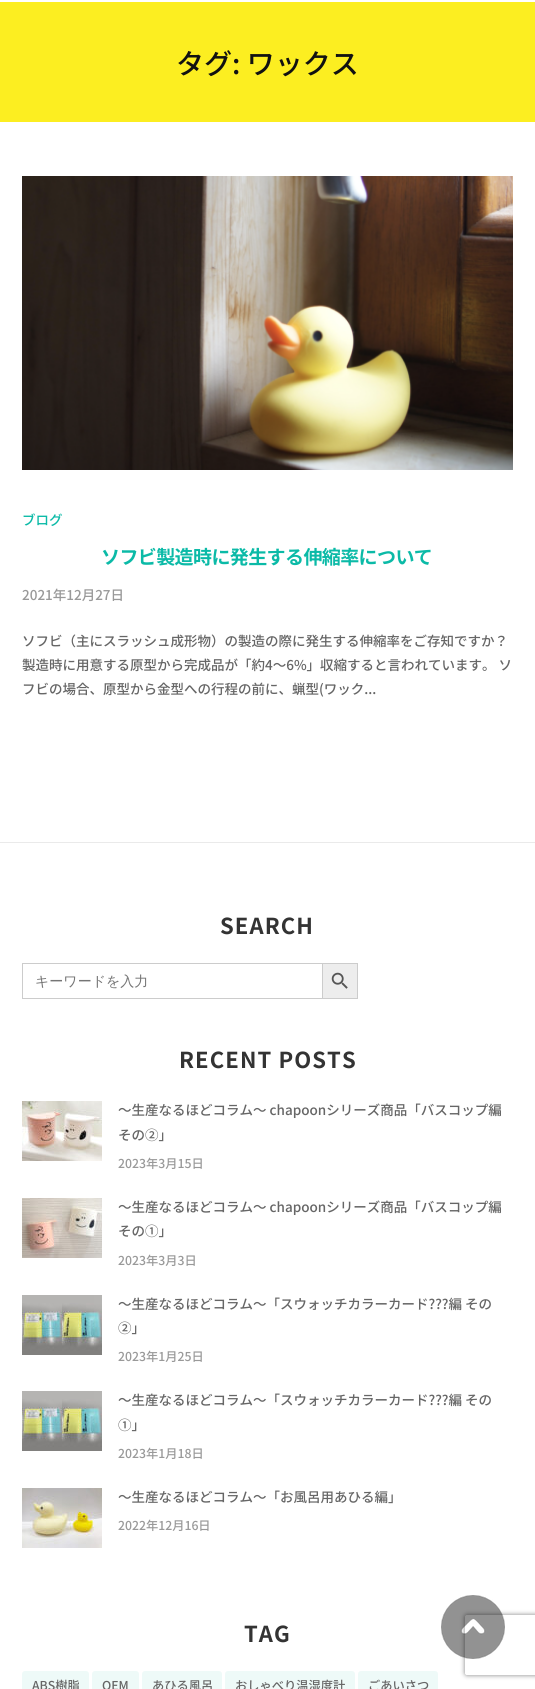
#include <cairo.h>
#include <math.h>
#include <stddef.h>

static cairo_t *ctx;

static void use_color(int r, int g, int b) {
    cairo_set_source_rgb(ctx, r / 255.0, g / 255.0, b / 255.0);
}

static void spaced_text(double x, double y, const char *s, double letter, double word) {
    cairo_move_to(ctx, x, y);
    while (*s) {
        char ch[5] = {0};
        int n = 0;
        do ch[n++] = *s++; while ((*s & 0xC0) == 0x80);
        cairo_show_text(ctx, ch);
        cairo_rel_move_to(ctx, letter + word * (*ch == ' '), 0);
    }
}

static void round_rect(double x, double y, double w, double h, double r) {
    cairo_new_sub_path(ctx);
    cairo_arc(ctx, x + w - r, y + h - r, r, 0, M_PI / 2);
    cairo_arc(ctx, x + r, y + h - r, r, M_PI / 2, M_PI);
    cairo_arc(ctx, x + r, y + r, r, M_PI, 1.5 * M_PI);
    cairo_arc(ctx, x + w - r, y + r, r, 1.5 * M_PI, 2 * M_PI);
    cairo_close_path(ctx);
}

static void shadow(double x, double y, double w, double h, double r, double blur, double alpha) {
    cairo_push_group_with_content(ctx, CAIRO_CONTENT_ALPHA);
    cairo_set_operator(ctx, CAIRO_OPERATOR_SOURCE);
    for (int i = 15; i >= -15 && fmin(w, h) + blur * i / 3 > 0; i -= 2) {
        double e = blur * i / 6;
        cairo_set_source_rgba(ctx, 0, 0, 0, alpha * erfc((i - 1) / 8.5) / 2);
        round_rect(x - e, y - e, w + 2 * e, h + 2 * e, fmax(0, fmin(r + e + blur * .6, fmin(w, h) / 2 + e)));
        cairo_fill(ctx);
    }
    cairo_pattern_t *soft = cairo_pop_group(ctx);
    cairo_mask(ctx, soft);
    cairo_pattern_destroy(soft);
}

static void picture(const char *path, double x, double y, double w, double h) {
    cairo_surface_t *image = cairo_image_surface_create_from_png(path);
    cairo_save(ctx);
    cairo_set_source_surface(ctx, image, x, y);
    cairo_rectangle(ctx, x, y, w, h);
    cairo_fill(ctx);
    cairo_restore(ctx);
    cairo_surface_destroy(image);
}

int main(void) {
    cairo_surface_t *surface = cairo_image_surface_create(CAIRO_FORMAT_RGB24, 535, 1689);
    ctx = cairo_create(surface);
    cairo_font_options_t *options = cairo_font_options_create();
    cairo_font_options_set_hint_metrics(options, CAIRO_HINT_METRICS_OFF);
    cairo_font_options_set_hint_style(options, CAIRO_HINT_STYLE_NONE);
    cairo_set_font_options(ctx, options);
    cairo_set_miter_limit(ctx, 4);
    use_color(255, 255, 255);
    cairo_paint(ctx);
    use_color(252, 238, 33);
    cairo_rectangle(ctx, 0, 2, 535, 120);
    cairo_fill(ctx);
    cairo_select_font_face(ctx, "Noto Sans JP Medium", CAIRO_FONT_SLANT_NORMAL, CAIRO_FONT_WEIGHT_NORMAL);
    cairo_set_font_size(ctx, 28);
    use_color(17, 17, 17);
    cairo_move_to(ctx, 176, 74);
    cairo_show_text(ctx, "タグ: ワックス");
    use_color(234, 234, 234);
    cairo_rectangle(ctx, 0, 842, 535, 1);
    cairo_fill(ctx);
    picture("img1.png", 22, 176, 491, 294);
    cairo_set_font_size(ctx, 13.5);
    use_color(11, 186, 167);
    cairo_move_to(ctx, 22, 525);
    cairo_show_text(ctx, "ブログ");
    cairo_select_font_face(ctx, "Noto Sans JP", CAIRO_FONT_SLANT_NORMAL, CAIRO_FONT_WEIGHT_BOLD);
    cairo_set_font_size(ctx, 19);
    spaced_text(101, 564, "ソフビ製造時に発生する伸縮率について", -0.6, 0);
    cairo_select_font_face(ctx, "Noto Sans JP Medium", CAIRO_FONT_SLANT_NORMAL, CAIRO_FONT_WEIGHT_NORMAL);
    cairo_set_font_size(ctx, 13.5);
    use_color(153, 153, 153);
    cairo_move_to(ctx, 22, 600);
    cairo_show_text(ctx, "2021年12月27日");
    use_color(102, 102, 102);
    cairo_move_to(ctx, 22, 646);
    cairo_show_text(ctx, "ソフビ（主にスラッシュ成形物）の製造の際に発生する伸縮率をご存知ですか？");
    cairo_move_to(ctx, 22, 670);
    cairo_show_text(ctx, "製造時に用意する原型から完成品が「約4〜6%」収縮すると言われています。 ソ");
    cairo_move_to(ctx, 22, 694);
    cairo_show_text(ctx, "フビの場合、原型から金型への行程の前に、蝋型(ワック...");
    cairo_select_font_face(ctx, "Noto Sans JP", CAIRO_FONT_SLANT_NORMAL, CAIRO_FONT_WEIGHT_BOLD);
    cairo_set_font_size(ctx, 22);
    use_color(51, 51, 51);
    spaced_text(220, 934, "SEARCH", 1.1, 0);
    use_color(204, 204, 204);
    cairo_rectangle(ctx, 22, 963, 300, 1);
    cairo_fill(ctx);
    cairo_rectangle(ctx, 22, 998, 300, 1);
    cairo_fill(ctx);
    cairo_rectangle(ctx, 22, 963, 1, 36);
    cairo_fill(ctx);
    cairo_select_font_face(ctx, "WenQuanYi Zen Hei Medium", CAIRO_FONT_SLANT_NORMAL, CAIRO_FONT_WEIGHT_NORMAL);
    cairo_set_font_size(ctx, 14);
    use_color(117, 117, 117);
    cairo_move_to(ctx, 35, 986);
    cairo_show_text(ctx, "キーワードを入力");
    use_color(237, 237, 237);
    cairo_rectangle(ctx, 322.5, 963.5, 35, 35);
    cairo_fill_preserve(ctx);
    use_color(204, 204, 204);
    cairo_set_line_width(ctx, 1);
    cairo_stroke(ctx);
    picture("img2.png", 331, 972, 17, 17);
    cairo_select_font_face(ctx, "Noto Sans JP", CAIRO_FONT_SLANT_NORMAL, CAIRO_FONT_WEIGHT_BOLD);
    cairo_set_font_size(ctx, 22);
    use_color(51, 51, 51);
    spaced_text(179, 1068, "RECENT POSTS", 1.1, 0);
    picture("img3.png", 22, 1101, 80, 60);
    cairo_select_font_face(ctx, "Noto Sans JP Medium", CAIRO_FONT_SLANT_NORMAL, CAIRO_FONT_WEIGHT_NORMAL);
    cairo_set_font_size(ctx, 13.5);
    use_color(102, 102, 102);
    cairo_move_to(ctx, 118, 1115);
    cairo_show_text(ctx, "〜生産なるほどコラム〜 chapoonシリーズ商品「バスコップ編");
    cairo_move_to(ctx, 118, 1140);
    cairo_show_text(ctx, "その②」");
    cairo_set_font_size(ctx, 12.25);
    use_color(153, 153, 153);
    cairo_move_to(ctx, 118, 1168);
    cairo_show_text(ctx, "2023年3月15日");
    picture("img4.png", 22, 1198, 80, 60);
    cairo_set_font_size(ctx, 13.5);
    use_color(102, 102, 102);
    cairo_move_to(ctx, 118, 1212);
    cairo_show_text(ctx, "〜生産なるほどコラム〜 chapoonシリーズ商品「バスコップ編");
    cairo_move_to(ctx, 118, 1236);
    cairo_show_text(ctx, "その①」");
    cairo_set_font_size(ctx, 12.25);
    use_color(153, 153, 153);
    cairo_move_to(ctx, 118, 1265);
    cairo_show_text(ctx, "2023年3月3日");
    picture("img5.png", 22, 1295, 80, 60);
    cairo_set_font_size(ctx, 13.5);
    use_color(102, 102, 102);
    cairo_move_to(ctx, 118, 1309);
    cairo_show_text(ctx, "〜生産なるほどコラム〜「スウォッチカラーカード?\077?編 その");
    cairo_move_to(ctx, 118, 1333);
    cairo_show_text(ctx, "②」");
    cairo_set_font_size(ctx, 12.25);
    use_color(153, 153, 153);
    cairo_move_to(ctx, 118, 1361);
    cairo_show_text(ctx, "2023年1月25日");
    picture("img5.png", 22, 1391, 80, 60);
    cairo_set_font_size(ctx, 13.5);
    use_color(102, 102, 102);
    cairo_move_to(ctx, 118, 1405);
    cairo_show_text(ctx, "〜生産なるほどコラム〜「スウォッチカラーカード?\077?編 その");
    cairo_move_to(ctx, 118, 1430);
    cairo_show_text(ctx, "①」");
    cairo_set_font_size(ctx, 12.25);
    use_color(153, 153, 153);
    cairo_move_to(ctx, 118, 1458);
    cairo_show_text(ctx, "2023年1月18日");
    picture("img6.png", 22, 1488, 80, 60);
    cairo_set_font_size(ctx, 13.5);
    use_color(102, 102, 102);
    cairo_move_to(ctx, 118, 1502);
    cairo_show_text(ctx, "〜生産なるほどコラム〜「お風呂用あひる編」");
    cairo_set_font_size(ctx, 12.25);
    use_color(153, 153, 153);
    cairo_move_to(ctx, 118, 1530);
    cairo_show_text(ctx, "2022年12月16日");
    cairo_select_font_face(ctx, "Noto Sans JP", CAIRO_FONT_SLANT_NORMAL, CAIRO_FONT_WEIGHT_BOLD);
    cairo_set_font_size(ctx, 22);
    use_color(51, 51, 51);
    spaced_text(244, 1642, "TAG", 1.1, 0);
    use_color(238, 250, 248);
    round_rect(22, 1671, 67, 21, 3);
    cairo_fill(ctx);
    cairo_select_font_face(ctx, "Noto Sans JP Medium", CAIRO_FONT_SLANT_NORMAL, CAIRO_FONT_WEIGHT_NORMAL);
    cairo_set_font_size(ctx, 12.25);
    use_color(102, 102, 102);
    cairo_move_to(ctx, 32, 1690);
    cairo_show_text(ctx, "ABS樹脂");
    use_color(238, 250, 248);
    round_rect(92, 1671, 47, 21, 3);
    cairo_fill(ctx);
    use_color(102, 102, 102);
    cairo_move_to(ctx, 102, 1690);
    cairo_show_text(ctx, "OEM");
    use_color(238, 250, 248);
    round_rect(142, 1671, 80, 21, 3);
    cairo_fill(ctx);
    use_color(102, 102, 102);
    cairo_move_to(ctx, 152, 1690);
    cairo_show_text(ctx, "あひる風呂");
    use_color(238, 250, 248);
    round_rect(225, 1671, 130, 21, 3);
    cairo_fill(ctx);
    use_color(102, 102, 102);
    cairo_move_to(ctx, 235, 1690);
    cairo_show_text(ctx, "おしゃべり温湿度計");
    use_color(238, 250, 248);
    round_rect(358, 1671, 80, 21, 3);
    cairo_fill(ctx);
    use_color(102, 102, 102);
    cairo_move_to(ctx, 368, 1690);
    cairo_show_text(ctx, "ごあいさつ");
    cairo_save(ctx);
    cairo_set_fill_rule(ctx, CAIRO_FILL_RULE_EVEN_ODD);
    cairo_new_path(ctx);
    cairo_move_to(ctx, 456, 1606);
    cairo_line_to(ctx, 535, 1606);
    cairo_line_to(ctx, 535, 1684);
    cairo_line_to(ctx, 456, 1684);
    cairo_close_path(ctx);
    cairo_move_to(ctx, 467, 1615);
    cairo_line_to(ctx, 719, 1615);
    cairo_curve_to(ctx, 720, 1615, 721, 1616, 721, 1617);
    cairo_line_to(ctx, 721, 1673);
    cairo_curve_to(ctx, 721, 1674, 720, 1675, 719, 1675);
    cairo_line_to(ctx, 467, 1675);
    cairo_curve_to(ctx, 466, 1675, 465, 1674, 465, 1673);
    cairo_line_to(ctx, 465, 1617);
    cairo_curve_to(ctx, 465, 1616, 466, 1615, 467, 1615);
    cairo_close_path(ctx);
    cairo_clip(ctx);
    use_color(128, 128, 128);
    shadow(465, 1615, 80, 60, 2, 2.5, 1);
    cairo_restore(ctx);
    picture("img7.png", 441, 1595, 64, 64);
    cairo_surface_write_to_png(surface, "result.png");
    cairo_font_options_destroy(options);
    cairo_destroy(ctx);
    cairo_surface_destroy(surface);
    return 0;
}
